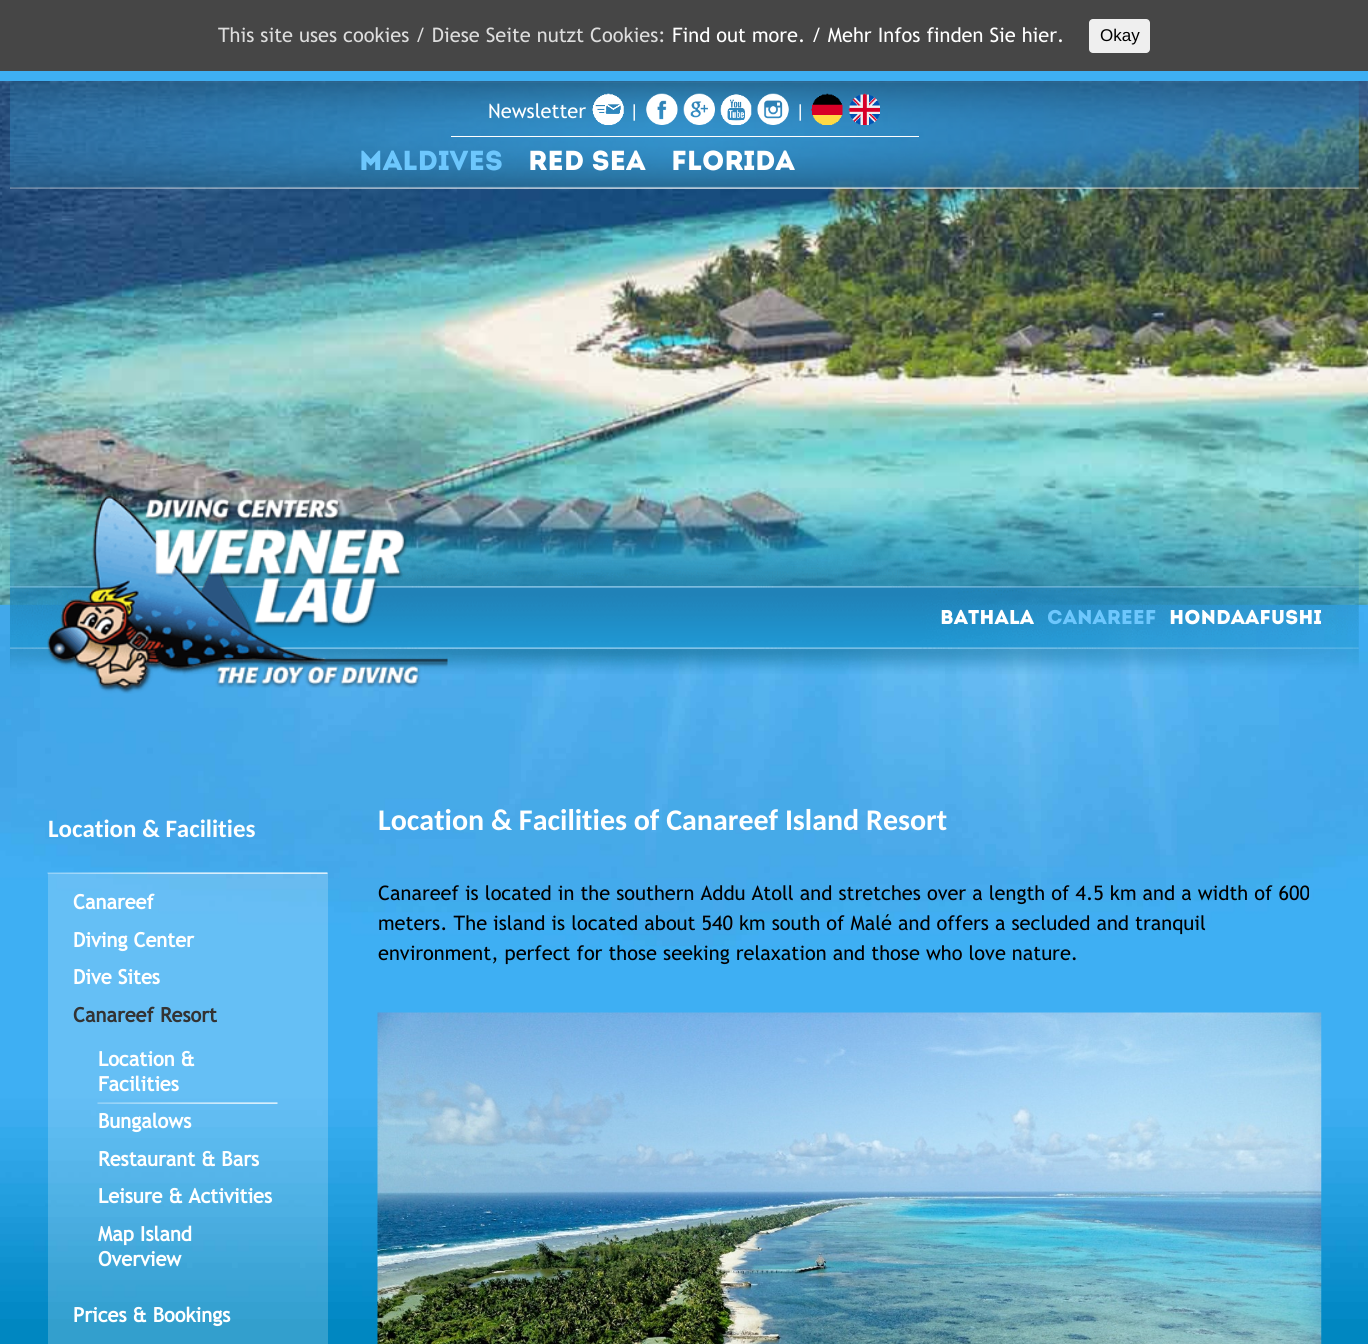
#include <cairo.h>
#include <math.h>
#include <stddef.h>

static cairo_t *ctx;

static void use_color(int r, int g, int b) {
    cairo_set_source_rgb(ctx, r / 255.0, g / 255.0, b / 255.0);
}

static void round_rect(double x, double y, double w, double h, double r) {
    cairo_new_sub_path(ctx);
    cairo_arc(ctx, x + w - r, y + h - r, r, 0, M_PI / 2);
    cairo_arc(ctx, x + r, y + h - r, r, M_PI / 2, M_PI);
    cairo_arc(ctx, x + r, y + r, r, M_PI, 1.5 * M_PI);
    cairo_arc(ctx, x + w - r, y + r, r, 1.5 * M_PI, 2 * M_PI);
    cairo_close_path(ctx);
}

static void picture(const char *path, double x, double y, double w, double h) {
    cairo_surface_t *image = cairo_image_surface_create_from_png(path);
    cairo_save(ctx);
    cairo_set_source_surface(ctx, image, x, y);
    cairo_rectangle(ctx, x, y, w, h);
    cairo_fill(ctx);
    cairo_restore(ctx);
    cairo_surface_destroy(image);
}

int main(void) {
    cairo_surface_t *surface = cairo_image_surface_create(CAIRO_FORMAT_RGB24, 1368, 1344);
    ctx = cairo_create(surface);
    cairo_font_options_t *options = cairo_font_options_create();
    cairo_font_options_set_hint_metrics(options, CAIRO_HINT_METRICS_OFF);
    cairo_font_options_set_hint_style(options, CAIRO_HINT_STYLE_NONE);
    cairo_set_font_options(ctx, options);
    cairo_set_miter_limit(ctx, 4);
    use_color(0, 135, 193);
    cairo_paint(ctx);
    picture("img1.png", 0, 71, 1368, 1248);
    use_color(70, 70, 70);
    cairo_rectangle(ctx, 0, 0, 1368, 71);
    cairo_fill(ctx);
    cairo_select_font_face(ctx, "Trebuchet MS", CAIRO_FONT_SLANT_NORMAL, CAIRO_FONT_WEIGHT_NORMAL);
    cairo_set_font_size(ctx, 20);
    use_color(221, 221, 221);
    cairo_move_to(ctx, 218, 42);
    cairo_show_text(ctx, "This site uses cookies / Diese Seite nutzt Cookies:");
    use_color(255, 255, 255);
    cairo_move_to(ctx, 672, 42);
    cairo_show_text(ctx, "Find out more. / Mehr Infos finden Sie hier.");
    use_color(239, 239, 239);
    round_rect(1089, 19, 61, 34, 4);
    cairo_fill(ctx);
    cairo_select_font_face(ctx, "Liberation Sans", CAIRO_FONT_SLANT_NORMAL, CAIRO_FONT_WEIGHT_NORMAL);
    cairo_set_font_size(ctx, 17);
    use_color(0, 0, 0);
    cairo_move_to(ctx, 1100, 41);
    cairo_show_text(ctx, "Okay");
    picture("img2.png", 0, 81, 1368, 524);
    picture("img3.png", 10, 81, 1349, 108);
    use_color(255, 255, 255);
    cairo_rectangle(ctx, 451, 136, 468, 1);
    cairo_fill(ctx);
    cairo_select_font_face(ctx, "Trebuchet MS", CAIRO_FONT_SLANT_NORMAL, CAIRO_FONT_WEIGHT_NORMAL);
    cairo_set_font_size(ctx, 20);
    cairo_move_to(ctx, 488, 118);
    cairo_show_text(ctx, "Newsletter");
    picture("img4.png", 592, 93, 32, 32);
    cairo_move_to(ctx, 629, 118);
    cairo_show_text(ctx, "|");
    picture("img5.png", 646, 93, 32, 32);
    picture("img6.png", 683, 93, 32, 32);
    picture("img7.png", 720, 94, 32, 31);
    picture("img8.png", 757, 93, 32, 32);
    cairo_move_to(ctx, 795, 118);
    cairo_show_text(ctx, "|");
    picture("img9.png", 811, 93, 32, 32);
    picture("img10.png", 848, 93, 32, 32);
    cairo_select_font_face(ctx, "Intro", CAIRO_FONT_SLANT_NORMAL, CAIRO_FONT_WEIGHT_NORMAL);
    cairo_set_font_size(ctx, 27.5);
    use_color(109, 199, 253);
    cairo_move_to(ctx, 359, 170);
    cairo_show_text(ctx, "MALDIVES");
    use_color(255, 255, 255);
    cairo_move_to(ctx, 528, 170);
    cairo_show_text(ctx, "RED SEA");
    cairo_move_to(ctx, 671, 170);
    cairo_show_text(ctx, "FLORIDA");
    picture("img11.png", 10, 488, 1349, 186);
    picture("img12.png", 47, 495, 401, 199);
    cairo_set_font_size(ctx, 20);
    cairo_move_to(ctx, 940, 624);
    cairo_show_text(ctx, "Bathala");
    use_color(109, 199, 253);
    cairo_move_to(ctx, 1047, 624);
    cairo_show_text(ctx, "Canareef");
    use_color(255, 255, 255);
    cairo_move_to(ctx, 1169, 624);
    cairo_show_text(ctx, "Hondaafushi");
    cairo_select_font_face(ctx, "Carlito", CAIRO_FONT_SLANT_NORMAL, CAIRO_FONT_WEIGHT_BOLD);
    cairo_set_font_size(ctx, 25);
    cairo_move_to(ctx, 48, 837);
    cairo_show_text(ctx, "Location & Facilities");
    cairo_set_source_rgba(ctx, 1, 1, 1, 0.2);
    cairo_rectangle(ctx, 48, 873, 280, 471);
    cairo_fill(ctx);
    picture("img13.png", 47, 872, 281, 2);
    cairo_select_font_face(ctx, "Trebuchet MS", CAIRO_FONT_SLANT_NORMAL, CAIRO_FONT_WEIGHT_BOLD);
    cairo_set_font_size(ctx, 20);
    use_color(255, 255, 255);
    cairo_move_to(ctx, 73, 909);
    cairo_show_text(ctx, "Canareef");
    cairo_move_to(ctx, 73, 947);
    cairo_show_text(ctx, "Diving Center");
    cairo_move_to(ctx, 73, 984);
    cairo_show_text(ctx, "Dive Sites");
    use_color(51, 51, 51);
    cairo_move_to(ctx, 73, 1022);
    cairo_show_text(ctx, "Canareef Resort");
    picture("img14.png", 97, 1102, 181, 2);
    use_color(255, 255, 255);
    cairo_move_to(ctx, 98, 1066);
    cairo_show_text(ctx, "Location &");
    cairo_move_to(ctx, 98, 1091);
    cairo_show_text(ctx, "Facilities");
    cairo_move_to(ctx, 98, 1128);
    cairo_show_text(ctx, "Bungalows");
    cairo_move_to(ctx, 98, 1166);
    cairo_show_text(ctx, "Restaurant & Bars");
    cairo_move_to(ctx, 98, 1203);
    cairo_show_text(ctx, "Leisure & Activities");
    cairo_move_to(ctx, 98, 1241);
    cairo_show_text(ctx, "Map Island");
    cairo_move_to(ctx, 98, 1266);
    cairo_show_text(ctx, "Overview");
    cairo_move_to(ctx, 73, 1322);
    cairo_show_text(ctx, "Prices & Bookings");
    cairo_select_font_face(ctx, "Carlito", CAIRO_FONT_SLANT_NORMAL, CAIRO_FONT_WEIGHT_BOLD);
    cairo_set_font_size(ctx, 30);
    cairo_move_to(ctx, 378, 830);
    cairo_show_text(ctx, "Location & Facilities of Canareef Island Resort");
    cairo_select_font_face(ctx, "Trebuchet MS", CAIRO_FONT_SLANT_NORMAL, CAIRO_FONT_WEIGHT_NORMAL);
    cairo_set_font_size(ctx, 20);
    use_color(0, 0, 0);
    cairo_move_to(ctx, 378, 900);
    cairo_show_text(ctx, "Canareef is located in the southern Addu Atoll and stretches over a length of 4.5 km and a width of 600");
    cairo_move_to(ctx, 378, 930);
    cairo_show_text(ctx, "meters. The island is located about 540 km south of Malé and offers a secluded and tranquil");
    cairo_move_to(ctx, 378, 960);
    cairo_show_text(ctx, "environment, perfect for those seeking relaxation and those who love nature.");
    picture("img15.png", 377, 1012, 945, 332);
    cairo_surface_write_to_png(surface, "result.png");
    cairo_font_options_destroy(options);
    cairo_destroy(ctx);
    cairo_surface_destroy(surface);
    return 0;
}
